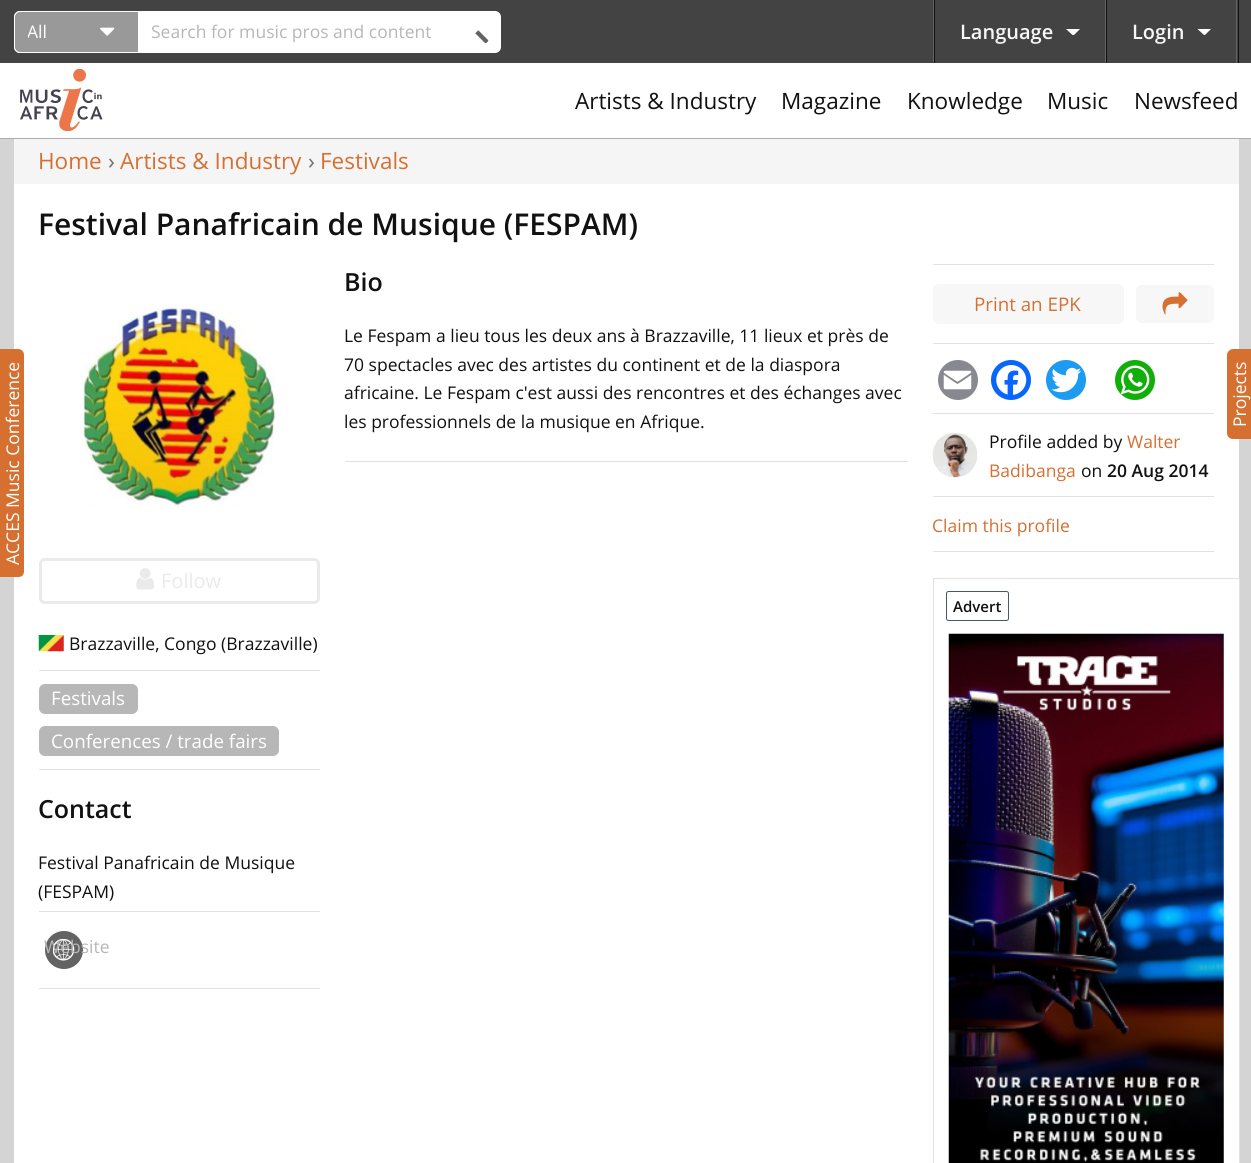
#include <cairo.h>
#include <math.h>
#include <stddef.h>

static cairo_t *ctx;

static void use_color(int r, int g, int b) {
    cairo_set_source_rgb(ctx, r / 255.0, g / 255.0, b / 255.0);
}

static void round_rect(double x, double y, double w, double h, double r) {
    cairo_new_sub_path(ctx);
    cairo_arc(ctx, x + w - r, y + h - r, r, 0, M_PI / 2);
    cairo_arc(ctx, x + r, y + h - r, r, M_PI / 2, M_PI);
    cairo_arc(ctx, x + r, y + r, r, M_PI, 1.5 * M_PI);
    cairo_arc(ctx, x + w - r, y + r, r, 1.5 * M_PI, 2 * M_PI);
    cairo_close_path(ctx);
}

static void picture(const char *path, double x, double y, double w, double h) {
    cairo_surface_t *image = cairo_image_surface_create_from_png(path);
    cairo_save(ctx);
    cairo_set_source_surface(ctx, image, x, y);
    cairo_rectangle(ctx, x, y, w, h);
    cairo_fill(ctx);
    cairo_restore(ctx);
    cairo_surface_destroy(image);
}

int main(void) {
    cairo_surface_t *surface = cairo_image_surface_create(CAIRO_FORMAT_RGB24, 1251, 1163);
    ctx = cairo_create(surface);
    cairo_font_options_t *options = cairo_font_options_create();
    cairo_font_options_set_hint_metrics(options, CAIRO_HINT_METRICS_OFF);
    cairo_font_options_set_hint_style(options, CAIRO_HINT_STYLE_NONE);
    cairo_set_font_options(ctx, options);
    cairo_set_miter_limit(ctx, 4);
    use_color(212, 212, 212);
    cairo_paint(ctx);
    use_color(67, 67, 67);
    cairo_rectangle(ctx, 0, 0, 1251, 63);
    cairo_fill(ctx);
    use_color(255, 255, 255);
    round_rect(14, 11, 487, 42, 6);
    cairo_fill(ctx);
    use_color(153, 153, 153);
    cairo_new_path(ctx);
    cairo_move_to(ctx, 20, 11.5);
    cairo_line_to(ctx, 138.5, 11.5);
    cairo_line_to(ctx, 138.5, 52.5);
    cairo_line_to(ctx, 20, 52.5);
    cairo_curve_to(ctx, 17, 52.5, 14.5, 50, 14.5, 47);
    cairo_line_to(ctx, 14.5, 17);
    cairo_curve_to(ctx, 14.5, 14, 17, 11.5, 20, 11.5);
    cairo_close_path(ctx);
    cairo_fill_preserve(ctx);
    use_color(255, 255, 255);
    cairo_set_line_width(ctx, 1);
    cairo_stroke(ctx);
    cairo_save(ctx);
    cairo_rectangle(ctx, 28, 18, 18, 28);
    cairo_clip(ctx);
    cairo_select_font_face(ctx, "Open Sans", CAIRO_FONT_SLANT_NORMAL, CAIRO_FONT_WEIGHT_NORMAL);
    cairo_set_font_size(ctx, 17.5);
    cairo_move_to(ctx, 27, 38);
    cairo_show_text(ctx, "All");
    cairo_restore(ctx);
    picture("img1.png", 100, 27, 15, 9);
    cairo_select_font_face(ctx, "Open Sans", CAIRO_FONT_SLANT_NORMAL, CAIRO_FONT_WEIGHT_NORMAL);
    cairo_set_font_size(ctx, 17.5);
    use_color(183, 183, 183);
    cairo_move_to(ctx, 151, 38);
    cairo_show_text(ctx, "Search for music pros and content");
    picture("img2.png", 475, 30, 14, 14);
    use_color(17, 17, 17);
    cairo_rectangle(ctx, 1238, 0, 1, 63);
    cairo_fill(ctx);
    use_color(99, 99, 99);
    cairo_rectangle(ctx, 1105, 0, 1, 63);
    cairo_fill(ctx);
    cairo_rectangle(ctx, 933, 0, 1, 63);
    cairo_fill(ctx);
    use_color(17, 17, 17);
    cairo_rectangle(ctx, 934, 0, 1, 63);
    cairo_fill(ctx);
    cairo_select_font_face(ctx, "Open Sans SemiBold", CAIRO_FONT_SLANT_NORMAL, CAIRO_FONT_WEIGHT_NORMAL);
    cairo_set_font_size(ctx, 20);
    use_color(247, 247, 247);
    cairo_move_to(ctx, 960, 39);
    cairo_show_text(ctx, "Language");
    use_color(255, 255, 255);
    cairo_new_path(ctx);
    cairo_move_to(ctx, 1066, 29);
    cairo_line_to(ctx, 1080, 29);
    cairo_line_to(ctx, 1074, 35);
    cairo_line_to(ctx, 1072.5, 35);
    cairo_close_path(ctx);
    cairo_fill(ctx);
    use_color(99, 99, 99);
    cairo_rectangle(ctx, 1236, 0, 1, 63);
    cairo_fill(ctx);
    use_color(17, 17, 17);
    cairo_rectangle(ctx, 1106, 0, 1, 63);
    cairo_fill(ctx);
    use_color(247, 247, 247);
    cairo_move_to(ctx, 1132, 39);
    cairo_show_text(ctx, "Login");
    use_color(255, 255, 255);
    cairo_new_path(ctx);
    cairo_move_to(ctx, 1197.5, 29);
    cairo_line_to(ctx, 1211, 29);
    cairo_line_to(ctx, 1205, 35);
    cairo_line_to(ctx, 1204, 35);
    cairo_close_path(ctx);
    cairo_fill(ctx);
    cairo_rectangle(ctx, 0, 63, 1251, 75);
    cairo_fill(ctx);
    use_color(172, 172, 172);
    cairo_rectangle(ctx, 0, 138, 1251, 1);
    cairo_fill(ctx);
    picture("img3.png", 20, 69, 83, 62);
    cairo_select_font_face(ctx, "Open Sans", CAIRO_FONT_SLANT_NORMAL, CAIRO_FONT_WEIGHT_NORMAL);
    cairo_set_font_size(ctx, 22.5);
    use_color(17, 17, 17);
    cairo_move_to(ctx, 575, 109);
    cairo_show_text(ctx, "Artists & Industry");
    cairo_move_to(ctx, 781, 109);
    cairo_show_text(ctx, "Magazine");
    cairo_move_to(ctx, 907, 109);
    cairo_show_text(ctx, "Knowledge");
    cairo_move_to(ctx, 1047, 109);
    cairo_show_text(ctx, "Music");
    cairo_move_to(ctx, 1134, 109);
    cairo_show_text(ctx, "Newsfeed");
    use_color(245, 245, 245);
    cairo_rectangle(ctx, 14, 139, 1225, 45);
    cairo_fill(ctx);
    use_color(213, 112, 49);
    cairo_move_to(ctx, 38, 169);
    cairo_show_text(ctx, "Home");
    use_color(112, 112, 112);
    cairo_move_to(ctx, 108, 169);
    cairo_show_text(ctx, "›");
    use_color(213, 112, 49);
    cairo_move_to(ctx, 120, 169);
    cairo_show_text(ctx, "Artists & Industry");
    use_color(112, 112, 112);
    cairo_move_to(ctx, 308, 169);
    cairo_show_text(ctx, "›");
    use_color(213, 112, 49);
    cairo_move_to(ctx, 320, 169);
    cairo_show_text(ctx, "Festivals");
    use_color(255, 255, 255);
    cairo_rectangle(ctx, 14, 184, 1225, 979);
    cairo_fill(ctx);
    use_color(213, 112, 49);
    cairo_new_path(ctx);
    cairo_move_to(ctx, 0, 577);
    cairo_line_to(ctx, 0, 349);
    cairo_line_to(ctx, 18, 349);
    cairo_curve_to(ctx, 22, 349, 24, 352, 24, 355);
    cairo_line_to(ctx, 24, 571);
    cairo_curve_to(ctx, 24, 575, 22, 577, 18, 577);
    cairo_close_path(ctx);
    cairo_fill(ctx);
    cairo_set_font_size(ctx, 17.5);
    use_color(255, 255, 255);
    cairo_save(ctx);
    cairo_translate(ctx, 19, 565);
    cairo_rotate(ctx, -90 * M_PI / 180);
    cairo_move_to(ctx, 0, 0);
    cairo_show_text(ctx, "ACCES Music Conference");
    cairo_restore(ctx);
    cairo_select_font_face(ctx, "Open Sans SemiBold", CAIRO_FONT_SLANT_NORMAL, CAIRO_FONT_WEIGHT_NORMAL);
    cairo_set_font_size(ctx, 30);
    use_color(17, 17, 17);
    cairo_move_to(ctx, 38, 235);
    cairo_show_text(ctx, "Festival Panafricain de Musique (FESPAM)");
    use_color(226, 226, 226);
    cairo_rectangle(ctx, 345, 461, 563, 1);
    cairo_fill(ctx);
    cairo_set_font_size(ctx, 25);
    use_color(17, 17, 17);
    cairo_move_to(ctx, 344, 291);
    cairo_show_text(ctx, "Bio");
    cairo_select_font_face(ctx, "Open Sans", CAIRO_FONT_SLANT_NORMAL, CAIRO_FONT_WEIGHT_NORMAL);
    cairo_set_font_size(ctx, 17.5);
    cairo_move_to(ctx, 344, 342);
    cairo_show_text(ctx, "Le Fespam a lieu tous les deux ans à Brazzaville, 11 lieux et près de");
    cairo_move_to(ctx, 344, 371);
    cairo_show_text(ctx, "70 spectacles avec des artistes du continent et de la diaspora");
    cairo_move_to(ctx, 344, 399);
    cairo_show_text(ctx, "africaine. Le Fespam c'est aussi des rencontres et des échanges avec");
    cairo_move_to(ctx, 344, 428);
    cairo_show_text(ctx, "les professionnels de la musique en Afrique.");
    use_color(226, 226, 226);
    cairo_rectangle(ctx, 933, 264, 281, 1);
    cairo_fill(ctx);
    cairo_rectangle(ctx, 933, 343, 281, 1);
    cairo_fill(ctx);
    use_color(247, 247, 247);
    round_rect(933, 284, 191, 40, 6);
    cairo_fill(ctx);
    cairo_set_font_size(ctx, 18.75);
    use_color(213, 112, 49);
    cairo_move_to(ctx, 974, 311);
    cairo_show_text(ctx, "Print an EPK");
    use_color(247, 247, 247);
    round_rect(1136, 285, 78, 38, 6);
    cairo_fill(ctx);
    picture("img4.png", 1162, 292, 26, 23);
    use_color(226, 226, 226);
    cairo_rectangle(ctx, 933, 413, 281, 1);
    cairo_fill(ctx);
    use_color(136, 137, 144);
    cairo_arc(ctx, 958, 380, 20, 0, 2 * M_PI);
    cairo_fill(ctx);
    picture("img5.png", 943, 370, 29, 20);
    use_color(8, 102, 255);
    cairo_arc(ctx, 1011, 380, 20, 0, 2 * M_PI);
    cairo_fill(ctx);
    picture("img6.png", 996, 365, 31, 30);
    use_color(29, 155, 240);
    cairo_arc(ctx, 1066, 380, 20, 0, 2 * M_PI);
    cairo_fill(ctx);
    picture("img7.png", 1051, 367, 31, 26);
    use_color(18, 175, 10);
    cairo_arc(ctx, 1135, 380, 20, 0, 2 * M_PI);
    cairo_fill(ctx);
    picture("img8.png", 1120, 365, 30, 30);
    use_color(226, 226, 226);
    cairo_rectangle(ctx, 933, 496, 281, 1);
    cairo_fill(ctx);
    picture("img9.png", 932, 432, 46, 46);
    cairo_set_font_size(ctx, 17.5);
    use_color(17, 17, 17);
    cairo_move_to(ctx, 989, 448);
    cairo_show_text(ctx, "Profile added by");
    use_color(213, 112, 49);
    cairo_move_to(ctx, 1127, 448);
    cairo_show_text(ctx, "Walter");
    cairo_move_to(ctx, 989, 477);
    cairo_show_text(ctx, "Badibanga");
    use_color(17, 17, 17);
    cairo_move_to(ctx, 1081, 477);
    cairo_show_text(ctx, "on");
    cairo_select_font_face(ctx, "Open Sans SemiBold", CAIRO_FONT_SLANT_NORMAL, CAIRO_FONT_WEIGHT_NORMAL);
    cairo_move_to(ctx, 1107, 477);
    cairo_show_text(ctx, "20 Aug 2014");
    use_color(226, 226, 226);
    cairo_rectangle(ctx, 933, 551, 281, 1);
    cairo_fill(ctx);
    cairo_select_font_face(ctx, "Open Sans", CAIRO_FONT_SLANT_NORMAL, CAIRO_FONT_WEIGHT_NORMAL);
    use_color(213, 112, 49);
    cairo_move_to(ctx, 932, 532);
    cairo_show_text(ctx, "Claim this profile");
    cairo_rectangle(ctx, 933.5, 578.5, 306, 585);
    use_color(226, 226, 226);
    cairo_stroke(ctx);
    round_rect(946.5, 591.5, 62, 29, 2);
    use_color(71, 86, 105);
    cairo_stroke(ctx);
    cairo_select_font_face(ctx, "Open Sans SemiBold", CAIRO_FONT_SLANT_NORMAL, CAIRO_FONT_WEIGHT_NORMAL);
    cairo_set_font_size(ctx, 15);
    use_color(17, 17, 17);
    cairo_move_to(ctx, 953, 612);
    cairo_show_text(ctx, "Advert");
    picture("img10.png", 948, 633, 276, 530);
    picture("img11.png", 81, 303, 197, 206);
    round_rect(40.5, 559.5, 278, 43, 4.5);
    use_color(234, 234, 234);
    cairo_set_line_width(ctx, 3);
    cairo_stroke(ctx);
    picture("img12.png", 136, 568, 18, 22);
    cairo_select_font_face(ctx, "Open Sans", CAIRO_FONT_SLANT_NORMAL, CAIRO_FONT_WEIGHT_NORMAL);
    cairo_set_font_size(ctx, 20);
    cairo_move_to(ctx, 161, 588);
    cairo_show_text(ctx, "Follow");
    use_color(226, 226, 226);
    cairo_rectangle(ctx, 39, 670, 281, 1);
    cairo_fill(ctx);
    picture("img13.png", 38, 635, 26, 17);
    cairo_set_font_size(ctx, 17.5);
    use_color(17, 17, 17);
    cairo_move_to(ctx, 69, 650);
    cairo_show_text(ctx, "Brazzaville, Congo (Brazzaville)");
    use_color(226, 226, 226);
    cairo_rectangle(ctx, 39, 769, 281, 1);
    cairo_fill(ctx);
    use_color(183, 183, 183);
    round_rect(39, 684, 99, 30, 6);
    cairo_fill(ctx);
    cairo_set_font_size(ctx, 18.75);
    use_color(255, 255, 255);
    cairo_move_to(ctx, 51, 705);
    cairo_show_text(ctx, "Festivals");
    use_color(183, 183, 183);
    round_rect(39, 726, 240, 30, 6);
    cairo_fill(ctx);
    use_color(255, 255, 255);
    cairo_move_to(ctx, 51, 748);
    cairo_show_text(ctx, "Conferences / trade fairs");
    use_color(226, 226, 226);
    cairo_rectangle(ctx, 39, 911, 281, 1);
    cairo_fill(ctx);
    cairo_select_font_face(ctx, "Open Sans SemiBold", CAIRO_FONT_SLANT_NORMAL, CAIRO_FONT_WEIGHT_NORMAL);
    cairo_set_font_size(ctx, 25);
    use_color(17, 17, 17);
    cairo_move_to(ctx, 38, 818);
    cairo_show_text(ctx, "Contact");
    cairo_select_font_face(ctx, "Open Sans", CAIRO_FONT_SLANT_NORMAL, CAIRO_FONT_WEIGHT_NORMAL);
    cairo_set_font_size(ctx, 17.5);
    cairo_move_to(ctx, 38, 869);
    cairo_show_text(ctx, "Festival Panafricain de Musique");
    cairo_move_to(ctx, 38, 898);
    cairo_show_text(ctx, "(FESPAM)");
    use_color(226, 226, 226);
    cairo_rectangle(ctx, 39, 988, 281, 1);
    cairo_fill(ctx);
    use_color(99, 99, 99);
    cairo_arc(ctx, 64, 950, 19, 0, 2 * M_PI);
    cairo_fill(ctx);
    picture("img14.png", 53, 939, 22, 22);
    use_color(183, 183, 183);
    cairo_move_to(ctx, 44, 953);
    cairo_show_text(ctx, "Website");
    use_color(213, 112, 49);
    cairo_new_path(ctx);
    cairo_move_to(ctx, 1227, 433);
    cairo_line_to(ctx, 1227, 355);
    cairo_curve_to(ctx, 1227, 352, 1230, 349, 1233, 349);
    cairo_line_to(ctx, 1251, 349);
    cairo_line_to(ctx, 1251, 439);
    cairo_line_to(ctx, 1233, 439);
    cairo_curve_to(ctx, 1230, 439, 1227, 437, 1227, 433);
    cairo_close_path(ctx);
    cairo_fill(ctx);
    use_color(255, 255, 255);
    cairo_save(ctx);
    cairo_translate(ctx, 1246, 427);
    cairo_rotate(ctx, -90 * M_PI / 180);
    cairo_move_to(ctx, 0, 0);
    cairo_show_text(ctx, "Projects");
    cairo_restore(ctx);
    cairo_surface_write_to_png(surface, "result.png");
    cairo_font_options_destroy(options);
    cairo_destroy(ctx);
    cairo_surface_destroy(surface);
    return 0;
}
